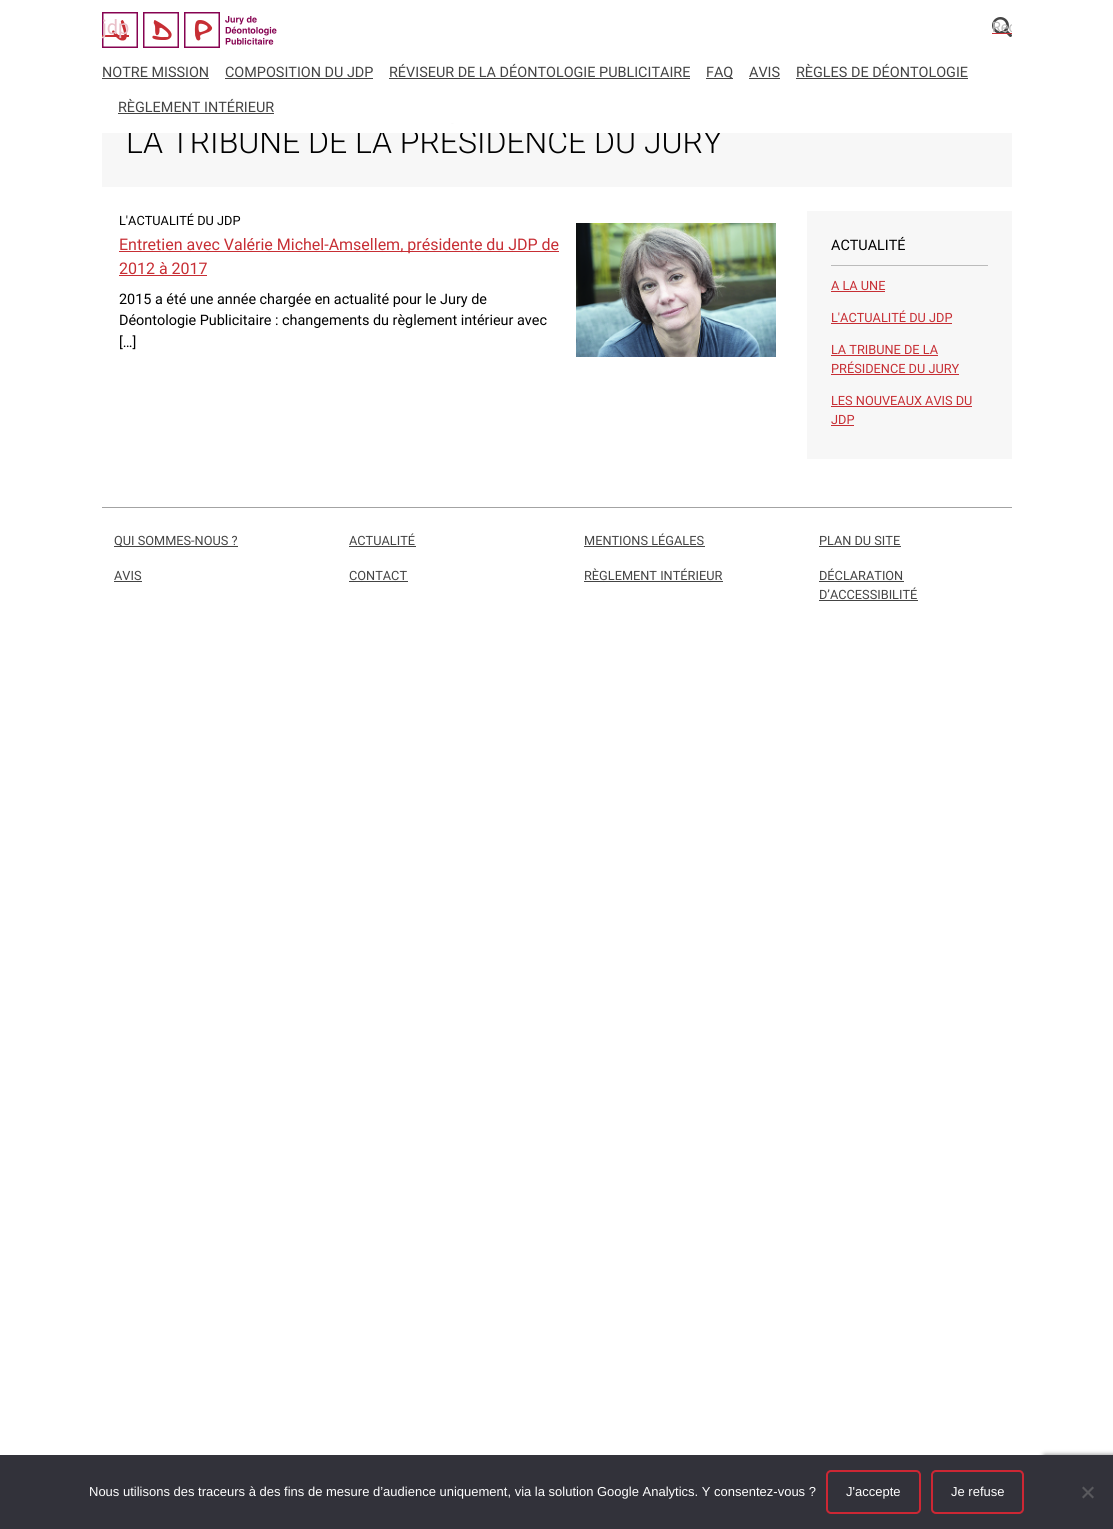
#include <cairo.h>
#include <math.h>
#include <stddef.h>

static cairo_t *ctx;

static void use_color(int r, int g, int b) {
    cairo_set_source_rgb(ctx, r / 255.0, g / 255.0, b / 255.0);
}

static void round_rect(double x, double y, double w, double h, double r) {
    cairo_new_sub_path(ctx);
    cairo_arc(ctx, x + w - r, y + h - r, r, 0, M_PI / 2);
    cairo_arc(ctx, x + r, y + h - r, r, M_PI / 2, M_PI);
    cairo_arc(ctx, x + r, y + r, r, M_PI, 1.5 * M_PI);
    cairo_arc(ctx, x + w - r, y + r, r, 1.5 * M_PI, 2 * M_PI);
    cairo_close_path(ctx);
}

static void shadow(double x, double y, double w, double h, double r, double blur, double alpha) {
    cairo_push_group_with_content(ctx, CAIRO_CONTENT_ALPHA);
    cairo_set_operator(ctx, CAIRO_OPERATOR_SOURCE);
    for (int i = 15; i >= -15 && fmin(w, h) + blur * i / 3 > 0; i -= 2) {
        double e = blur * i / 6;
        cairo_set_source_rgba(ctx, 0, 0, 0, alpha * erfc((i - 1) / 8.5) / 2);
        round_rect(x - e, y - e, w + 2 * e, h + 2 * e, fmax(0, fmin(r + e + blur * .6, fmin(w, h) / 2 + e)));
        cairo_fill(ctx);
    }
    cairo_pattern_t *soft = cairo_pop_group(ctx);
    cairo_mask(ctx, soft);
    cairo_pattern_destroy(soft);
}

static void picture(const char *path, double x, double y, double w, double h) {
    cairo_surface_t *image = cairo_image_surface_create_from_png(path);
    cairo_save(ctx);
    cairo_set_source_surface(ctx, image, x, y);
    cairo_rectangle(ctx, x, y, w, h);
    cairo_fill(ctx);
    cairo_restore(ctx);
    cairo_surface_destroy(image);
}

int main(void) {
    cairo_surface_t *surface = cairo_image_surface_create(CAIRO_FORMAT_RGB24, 1113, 1529);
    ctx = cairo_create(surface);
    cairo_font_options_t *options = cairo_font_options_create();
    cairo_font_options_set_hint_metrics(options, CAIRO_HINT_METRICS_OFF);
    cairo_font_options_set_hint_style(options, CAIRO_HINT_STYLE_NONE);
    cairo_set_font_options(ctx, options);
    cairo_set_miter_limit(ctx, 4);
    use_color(255, 255, 255);
    cairo_paint(ctx);
    use_color(247, 247, 247);
    cairo_rectangle(ctx, 102, 133, 910, 54);
    cairo_fill(ctx);
    cairo_select_font_face(ctx, "Roboto Light", CAIRO_FONT_SLANT_NORMAL, CAIRO_FONT_WEIGHT_NORMAL);
    cairo_set_font_size(ctx, 32);
    use_color(0, 0, 0);
    cairo_move_to(ctx, 126, 153);
    cairo_show_text(ctx, "LA TRIBUNE DE LA PRÉSIDENCE DU JURY");
    use_color(255, 255, 255);
    cairo_rectangle(ctx, 128, 124, 594, 9);
    cairo_fill(ctx);
    picture("img1.png", 102, 12, 175, 36);
    use_color(199, 46, 52);
    cairo_rectangle(ctx, 102, 35, 27, 2);
    cairo_fill(ctx);
    cairo_save(ctx);
    cairo_rectangle(ctx, 102, 12, 185, 36);
    cairo_clip(ctx);
    cairo_select_font_face(ctx, "Roboto", CAIRO_FONT_SLANT_NORMAL, CAIRO_FONT_WEIGHT_NORMAL);
    cairo_set_font_size(ctx, 20);
    use_color(233, 192, 201);
    cairo_move_to(ctx, 102, 34);
    cairo_show_text(ctx, "jdp");
    cairo_restore(ctx);
    picture("img2.png", 992, 17, 20, 20);
    cairo_save(ctx);
    cairo_rectangle(ctx, 992, 17, 20, 20);
    cairo_clip(ctx);
    cairo_select_font_face(ctx, "Roboto", CAIRO_FONT_SLANT_NORMAL, CAIRO_FONT_WEIGHT_NORMAL);
    cairo_set_font_size(ctx, 14.4);
    use_color(188, 188, 188);
    cairo_move_to(ctx, 992, 32);
    cairo_show_text(ctx, "Rec");
    cairo_restore(ctx);
    cairo_rectangle(ctx, 992, 33, 20, 1);
    cairo_fill(ctx);
    cairo_select_font_face(ctx, "Roboto", CAIRO_FONT_SLANT_NORMAL, CAIRO_FONT_WEIGHT_NORMAL);
    cairo_set_font_size(ctx, 14.4);
    use_color(68, 68, 68);
    cairo_move_to(ctx, 102, 77);
    cairo_show_text(ctx, "NOTRE MISSION");
    cairo_rectangle(ctx, 102, 78, 107, 1);
    cairo_fill(ctx);
    cairo_move_to(ctx, 225, 77);
    cairo_show_text(ctx, "COMPOSITION DU JDP");
    cairo_rectangle(ctx, 225, 78, 148, 1);
    cairo_fill(ctx);
    cairo_move_to(ctx, 389, 77);
    cairo_show_text(ctx, "RÉVISEUR DE LA DÉONTOLOGIE PUBLICITAIRE");
    cairo_rectangle(ctx, 389, 78, 301, 1);
    cairo_fill(ctx);
    cairo_rectangle(ctx, 706, 78, 27, 1);
    cairo_fill(ctx);
    cairo_move_to(ctx, 706, 77);
    cairo_show_text(ctx, "FAQ");
    cairo_move_to(ctx, 749, 77);
    cairo_show_text(ctx, "AVIS");
    cairo_rectangle(ctx, 749, 78, 31, 1);
    cairo_fill(ctx);
    cairo_move_to(ctx, 796, 77);
    cairo_show_text(ctx, "RÈGLES DE DÉONTOLOGIE");
    cairo_rectangle(ctx, 796, 78, 172, 1);
    cairo_fill(ctx);
    cairo_move_to(ctx, 118, 112);
    cairo_show_text(ctx, "RÈGLEMENT INTÉRIEUR");
    cairo_rectangle(ctx, 118, 113, 156, 1);
    cairo_fill(ctx);
    cairo_set_font_size(ctx, 12.75);
    use_color(0, 0, 0);
    cairo_move_to(ctx, 119, 225);
    cairo_show_text(ctx, "L'ACTUALITÉ DU JDP");
    use_color(199, 46, 52);
    cairo_rectangle(ctx, 119, 251, 440, 1);
    cairo_fill(ctx);
    cairo_set_font_size(ctx, 16);
    cairo_move_to(ctx, 119, 250);
    cairo_show_text(ctx, "Entretien avec Valérie Michel-Amsellem, présidente du JDP de");
    cairo_move_to(ctx, 119, 274);
    cairo_show_text(ctx, "2012 à 2017");
    cairo_rectangle(ctx, 119, 275, 88, 1);
    cairo_fill(ctx);
    cairo_set_font_size(ctx, 14.4);
    use_color(0, 0, 0);
    cairo_move_to(ctx, 119, 304);
    cairo_show_text(ctx, "2015 a été une année chargée en actualité pour le Jury de");
    cairo_move_to(ctx, 119, 325);
    cairo_show_text(ctx, "Déontologie Publicitaire : changements du règlement intérieur avec");
    cairo_move_to(ctx, 119, 347);
    cairo_show_text(ctx, "[…]");
    picture("img3.png", 576, 223, 200, 134);
    use_color(247, 247, 247);
    cairo_rectangle(ctx, 807, 211, 205, 248);
    cairo_fill(ctx);
    use_color(187, 187, 187);
    cairo_rectangle(ctx, 831, 265, 157, 1);
    cairo_fill(ctx);
    use_color(0, 0, 0);
    cairo_move_to(ctx, 831, 250);
    cairo_show_text(ctx, "ACTUALITÉ");
    cairo_set_font_size(ctx, 12.75);
    use_color(199, 46, 52);
    cairo_move_to(ctx, 831, 290);
    cairo_show_text(ctx, "A LA UNE");
    cairo_rectangle(ctx, 831, 291, 54, 1);
    cairo_fill(ctx);
    cairo_move_to(ctx, 831, 322);
    cairo_show_text(ctx, "L'ACTUALITÉ DU JDP");
    cairo_rectangle(ctx, 831, 323, 121, 1);
    cairo_fill(ctx);
    cairo_move_to(ctx, 831, 354);
    cairo_show_text(ctx, "LA TRIBUNE DE LA");
    cairo_rectangle(ctx, 831, 355, 107, 1);
    cairo_fill(ctx);
    cairo_move_to(ctx, 831, 373);
    cairo_show_text(ctx, "PRÉSIDENCE DU JURY");
    cairo_rectangle(ctx, 831, 374, 128, 1);
    cairo_fill(ctx);
    cairo_move_to(ctx, 831, 405);
    cairo_show_text(ctx, "LES NOUVEAUX AVIS DU");
    cairo_rectangle(ctx, 831, 406, 141, 1);
    cairo_fill(ctx);
    cairo_move_to(ctx, 831, 424);
    cairo_show_text(ctx, "JDP");
    cairo_rectangle(ctx, 831, 425, 23, 1);
    cairo_fill(ctx);
    use_color(163, 163, 163);
    cairo_rectangle(ctx, 102, 507, 910, 1);
    cairo_fill(ctx);
    use_color(68, 68, 68);
    cairo_rectangle(ctx, 114, 546, 124, 1);
    cairo_fill(ctx);
    cairo_move_to(ctx, 114, 545);
    cairo_show_text(ctx, "QUI SOMMES-NOUS ?");
    cairo_move_to(ctx, 114, 580);
    cairo_show_text(ctx, "AVIS");
    cairo_rectangle(ctx, 114, 581, 28, 1);
    cairo_fill(ctx);
    cairo_move_to(ctx, 349, 545);
    cairo_show_text(ctx, "ACTUALITÉ");
    cairo_rectangle(ctx, 349, 546, 67, 1);
    cairo_fill(ctx);
    cairo_move_to(ctx, 349, 580);
    cairo_show_text(ctx, "CONTACT");
    cairo_rectangle(ctx, 349, 581, 59, 1);
    cairo_fill(ctx);
    cairo_move_to(ctx, 584, 545);
    cairo_show_text(ctx, "MENTIONS LÉGALES");
    cairo_rectangle(ctx, 584, 546, 121, 1);
    cairo_fill(ctx);
    cairo_move_to(ctx, 584, 580);
    cairo_show_text(ctx, "RÈGLEMENT INTÉRIEUR");
    cairo_rectangle(ctx, 584, 581, 139, 1);
    cairo_fill(ctx);
    cairo_move_to(ctx, 819, 545);
    cairo_show_text(ctx, "PLAN DU SITE");
    cairo_rectangle(ctx, 819, 546, 82, 1);
    cairo_fill(ctx);
    cairo_move_to(ctx, 819, 580);
    cairo_show_text(ctx, "DÉCLARATION");
    cairo_rectangle(ctx, 819, 581, 85, 1);
    cairo_fill(ctx);
    cairo_move_to(ctx, 819, 599);
    cairo_show_text(ctx, "D’ACCESSIBILITÉ");
    cairo_rectangle(ctx, 819, 600, 99, 1);
    cairo_fill(ctx);
    use_color(128, 128, 128);
    shadow(1043, 1455, 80, 60, 2, 2.5, 1);
    use_color(50, 50, 58);
    cairo_rectangle(ctx, 0, 1455, 1113, 74);
    cairo_fill(ctx);
    cairo_select_font_face(ctx, "Liberation Sans", CAIRO_FONT_SLANT_NORMAL, CAIRO_FONT_WEIGHT_NORMAL);
    cairo_set_font_size(ctx, 13);
    use_color(255, 255, 255);
    cairo_move_to(ctx, 89, 1496);
    cairo_show_text(ctx, "Nous utilisons des traceurs à des fins de mesure d’audience uniquement, via la solution Google Analytics. Y consentez-vous ?");
    round_rect(827, 1471, 93, 42, 4);
    use_color(205, 39, 52);
    cairo_stroke(ctx);
    use_color(255, 255, 255);
    cairo_move_to(ctx, 846, 1496);
    cairo_show_text(ctx, "J'accepte");
    round_rect(932, 1471, 91, 42, 4);
    use_color(205, 39, 52);
    cairo_stroke(ctx);
    use_color(255, 255, 255);
    cairo_move_to(ctx, 951, 1496);
    cairo_show_text(ctx, "Je refuse");
    use_color(89, 89, 93);
    cairo_new_path(ctx);
    cairo_move_to(ctx, 1092.5, 1486.5);
    cairo_line_to(ctx, 1094, 1488);
    cairo_line_to(ctx, 1083.5, 1498.5);
    cairo_line_to(ctx, 1082, 1497);
    cairo_close_path(ctx);
    cairo_fill(ctx);
    cairo_new_path(ctx);
    cairo_move_to(ctx, 1082, 1488);
    cairo_line_to(ctx, 1083.5, 1486.5);
    cairo_line_to(ctx, 1094, 1497);
    cairo_line_to(ctx, 1092.5, 1498.5);
    cairo_close_path(ctx);
    cairo_fill(ctx);
    cairo_surface_write_to_png(surface, "result.png");
    cairo_font_options_destroy(options);
    cairo_destroy(ctx);
    cairo_surface_destroy(surface);
    return 0;
}
